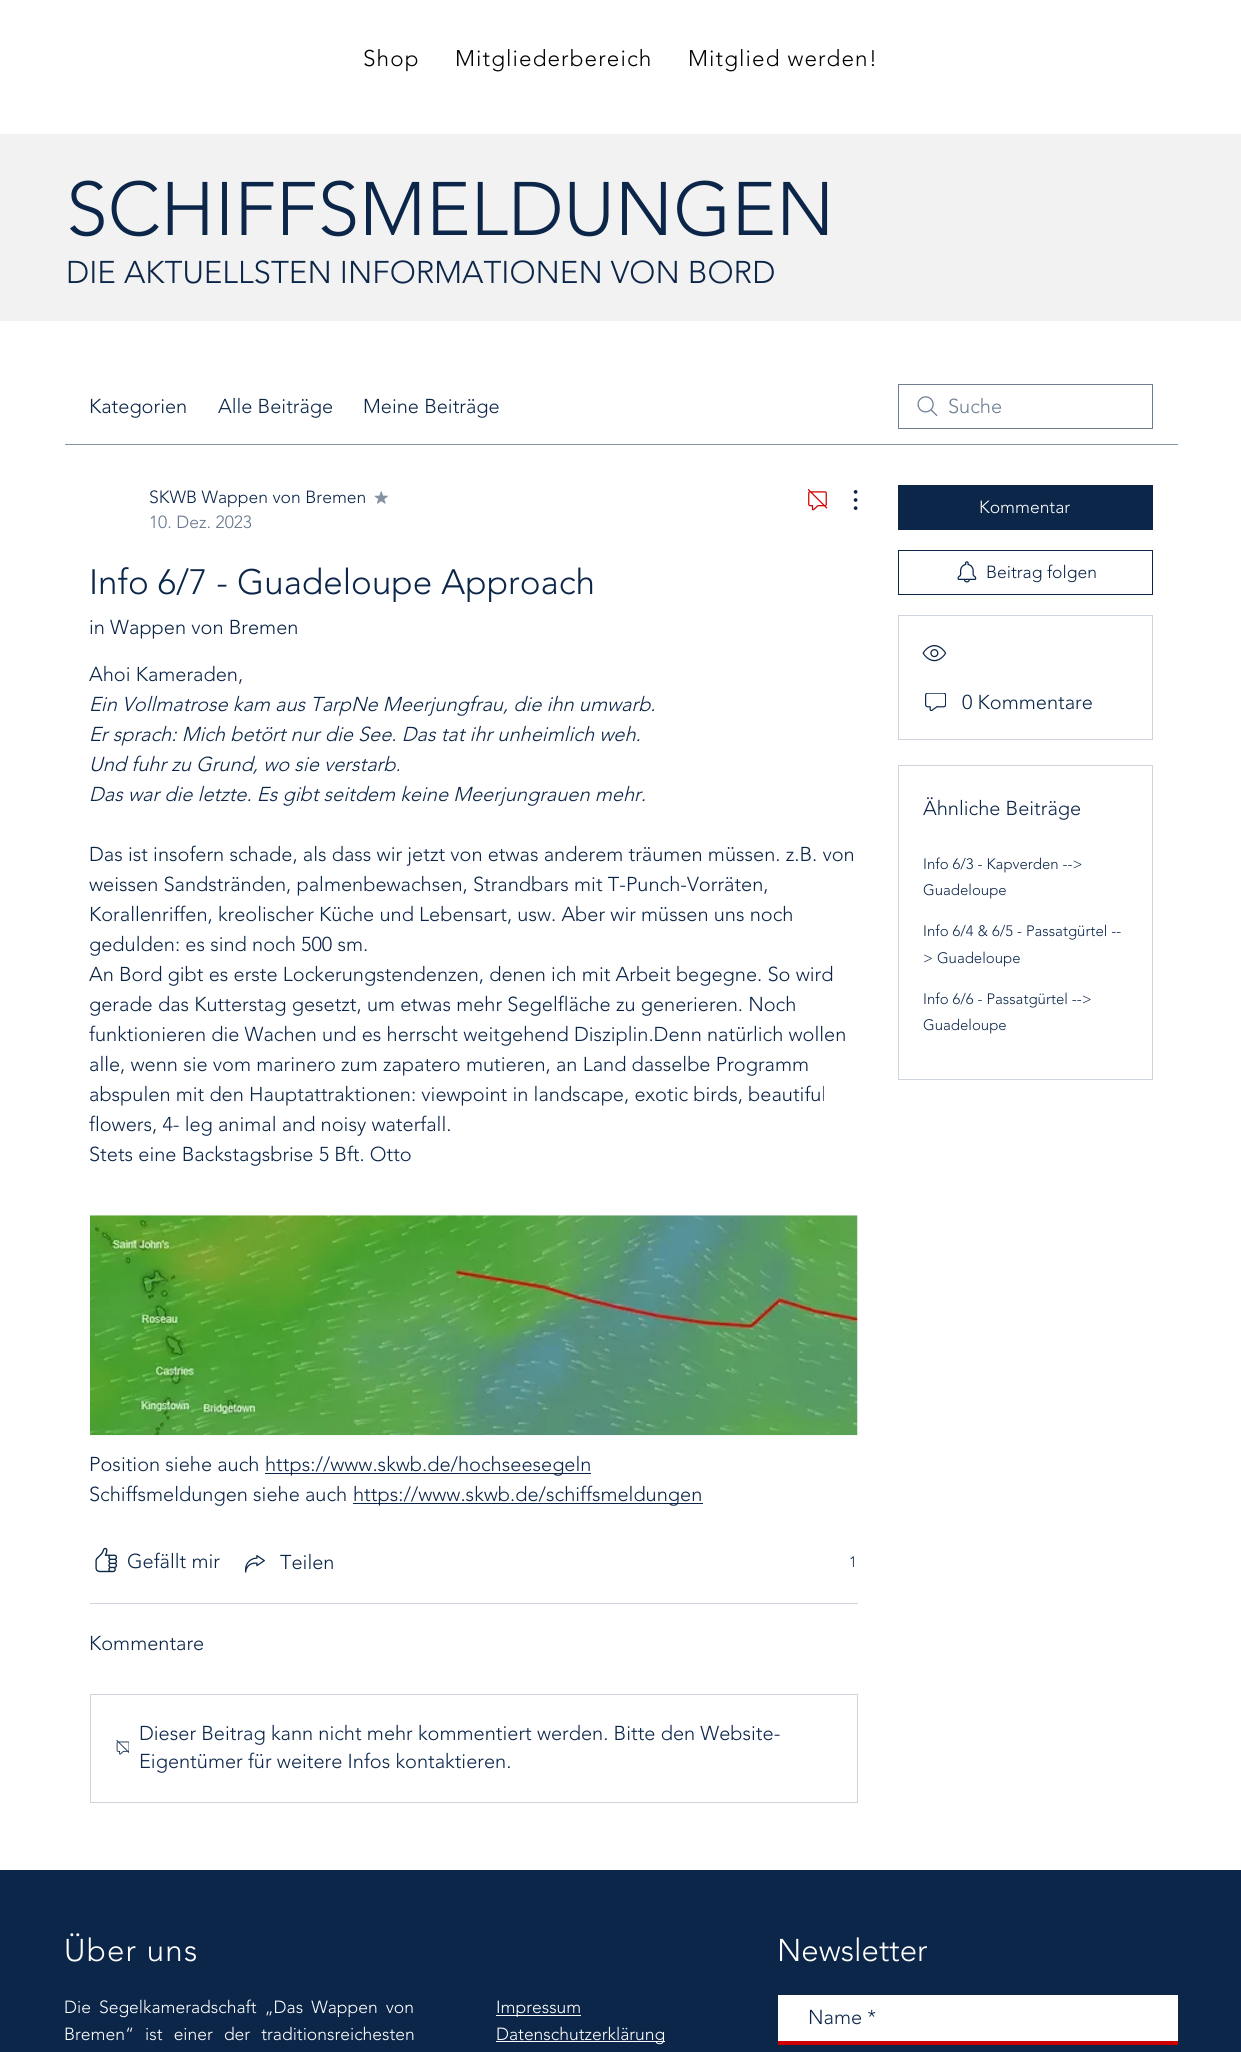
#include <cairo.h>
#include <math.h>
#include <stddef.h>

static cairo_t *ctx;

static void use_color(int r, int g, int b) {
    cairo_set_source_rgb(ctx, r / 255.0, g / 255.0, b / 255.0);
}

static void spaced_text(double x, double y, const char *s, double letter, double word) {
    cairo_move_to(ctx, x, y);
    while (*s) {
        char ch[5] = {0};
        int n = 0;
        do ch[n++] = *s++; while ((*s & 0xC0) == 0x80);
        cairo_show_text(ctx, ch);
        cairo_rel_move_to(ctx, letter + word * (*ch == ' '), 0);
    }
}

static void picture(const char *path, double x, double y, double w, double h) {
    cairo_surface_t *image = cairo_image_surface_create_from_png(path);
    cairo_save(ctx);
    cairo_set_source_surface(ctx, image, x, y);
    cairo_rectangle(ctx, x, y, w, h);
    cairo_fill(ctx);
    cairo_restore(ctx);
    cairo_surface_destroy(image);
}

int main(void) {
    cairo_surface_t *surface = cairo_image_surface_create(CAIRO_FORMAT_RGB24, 1241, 2052);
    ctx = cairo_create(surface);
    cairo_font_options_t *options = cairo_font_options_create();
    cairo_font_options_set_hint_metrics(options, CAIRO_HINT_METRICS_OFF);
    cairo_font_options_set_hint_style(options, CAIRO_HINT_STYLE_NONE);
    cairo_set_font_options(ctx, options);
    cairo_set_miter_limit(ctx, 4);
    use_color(255, 255, 255);
    cairo_paint(ctx);
    cairo_select_font_face(ctx, "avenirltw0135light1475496 Light", CAIRO_FONT_SLANT_NORMAL, CAIRO_FONT_WEIGHT_NORMAL);
    cairo_set_font_size(ctx, 22.5);
    use_color(0, 0, 0);
    spaced_text(363, 66, "Shop", 1.1, 0);
    spaced_text(455, 66, "Mitgliederbereich", 1.1, 0);
    spaced_text(688, 66, "Mitglied werden!", 1.1, 0);
    use_color(242, 242, 242);
    cairo_rectangle(ctx, 0, 134, 1241, 187);
    cairo_fill(ctx);
    cairo_set_font_size(ctx, 75);
    use_color(12, 38, 73);
    cairo_move_to(ctx, 66, 235);
    cairo_show_text(ctx, "SCHIFFSMELDUNGEN");
    cairo_set_font_size(ctx, 31.25);
    cairo_move_to(ctx, 66, 283);
    cairo_show_text(ctx, "DIE AKTUELLSTEN INFORMATIONEN VON BORD");
    use_color(134, 147, 164);
    cairo_rectangle(ctx, 65, 444, 1113, 1);
    cairo_fill(ctx);
    cairo_set_font_size(ctx, 20);
    use_color(12, 38, 73);
    cairo_move_to(ctx, 89, 413);
    cairo_show_text(ctx, "Kategorien");
    cairo_move_to(ctx, 218, 413);
    cairo_show_text(ctx, "Alle Beiträge");
    cairo_move_to(ctx, 363, 413);
    cairo_show_text(ctx, "Meine Beiträge");
    picture("img1.png", 917, 396, 21, 21);
    cairo_rectangle(ctx, 898.5, 384.5, 254, 44);
    use_color(109, 125, 146);
    cairo_set_line_width(ctx, 1);
    cairo_stroke(ctx);
    cairo_move_to(ctx, 948, 413);
    cairo_show_text(ctx, "Suche");
    cairo_set_font_size(ctx, 17.5);
    use_color(12, 38, 73);
    cairo_move_to(ctx, 149, 503);
    cairo_show_text(ctx, "SKWB Wappen von Bremen");
    picture("img2.png", 374, 491, 14, 13);
    use_color(99, 116, 139);
    cairo_move_to(ctx, 149, 528);
    cairo_show_text(ctx, "10. Dez. 2023");
    picture("img3.png", 808, 489, 20, 22);
    picture("img4.png", 853, 490, 5, 20);
    cairo_set_font_size(ctx, 35);
    use_color(12, 38, 73);
    cairo_move_to(ctx, 89, 594);
    cairo_show_text(ctx, "Info 6/7 - Guadeloupe Approach");
    cairo_set_font_size(ctx, 20);
    cairo_move_to(ctx, 89, 634);
    cairo_show_text(ctx, "in Wappen von Bremen");
    cairo_move_to(ctx, 89, 681);
    cairo_show_text(ctx, "Ahoi Kameraden,");
    cairo_select_font_face(ctx, "avenirltw0135light1475496 Light", CAIRO_FONT_SLANT_ITALIC, CAIRO_FONT_WEIGHT_NORMAL);
    cairo_move_to(ctx, 89, 711);
    cairo_show_text(ctx, "Ein Vollmatrose kam aus TarpNe Meerjungfrau, die ihn umwarb.");
    cairo_move_to(ctx, 89, 741);
    cairo_show_text(ctx, "Er sprach: Mich betört nur die See. Das tat ihr unheimlich weh.");
    cairo_move_to(ctx, 89, 771);
    cairo_show_text(ctx, "Und fuhr zu Grund, wo sie verstarb.");
    cairo_move_to(ctx, 89, 801);
    cairo_show_text(ctx, "Das war die letzte. Es gibt seitdem keine Meerjungrauen mehr.");
    cairo_select_font_face(ctx, "avenirltw0135light1475496 Light", CAIRO_FONT_SLANT_NORMAL, CAIRO_FONT_WEIGHT_NORMAL);
    cairo_move_to(ctx, 89, 861);
    cairo_show_text(ctx, "Das ist insofern schade, als dass wir jetzt von etwas anderem träumen müssen. z.B. von");
    cairo_move_to(ctx, 89, 891);
    cairo_show_text(ctx, "weissen Sandstränden, palmenbewachsen, Strandbars mit T-Punch-Vorräten,");
    cairo_move_to(ctx, 89, 921);
    cairo_show_text(ctx, "Korallenriffen, kreolischer Küche und Lebensart, usw. Aber wir müssen uns noch");
    cairo_move_to(ctx, 89, 951);
    cairo_show_text(ctx, "gedulden: es sind noch 500 sm.");
    cairo_move_to(ctx, 89, 981);
    cairo_show_text(ctx, "An Bord gibt es erste Lockerungstendenzen, denen ich mit Arbeit begegne. So wird");
    cairo_move_to(ctx, 89, 1011);
    cairo_show_text(ctx, "gerade das Kutterstag gesetzt, um etwas mehr Segelfläche zu generieren. Noch");
    cairo_move_to(ctx, 89, 1041);
    cairo_show_text(ctx, "funktionieren die Wachen und es herrscht weitgehend Disziplin.Denn natürlich wollen");
    cairo_move_to(ctx, 89, 1071);
    cairo_show_text(ctx, "alle, wenn sie vom marinero zum zapatero mutieren, an Land dasselbe Programm");
    cairo_move_to(ctx, 89, 1101);
    cairo_show_text(ctx, "abspulen mit den Hauptattraktionen: viewpoint in landscape, exotic birds, beautiful");
    cairo_move_to(ctx, 89, 1131);
    cairo_show_text(ctx, "flowers, 4- leg animal and noisy waterfall.");
    cairo_move_to(ctx, 89, 1161);
    cairo_show_text(ctx, "Stets eine Backstagsbrise 5 Bft. Otto");
    picture("img5.png", 90, 1215, 768, 221);
    cairo_move_to(ctx, 89, 1471);
    cairo_show_text(ctx, "Position siehe auch");
    cairo_rectangle(ctx, 265, 1473, 326, 1);
    cairo_fill(ctx);
    cairo_move_to(ctx, 265, 1471);
    cairo_show_text(ctx, "https://www.skwb.de/hochseesegeln");
    cairo_move_to(ctx, 89, 1501);
    cairo_show_text(ctx, "Schiffsmeldungen siehe auch");
    cairo_rectangle(ctx, 353, 1503, 350, 1);
    cairo_fill(ctx);
    cairo_move_to(ctx, 353, 1501);
    cairo_show_text(ctx, "https://www.skwb.de/schiffsmeldungen");
    picture("img6.png", 95, 1547, 23, 26);
    cairo_move_to(ctx, 127, 1568);
    cairo_show_text(ctx, "Gefällt mir");
    picture("img7.png", 245, 1555, 20, 18);
    cairo_move_to(ctx, 280, 1569);
    cairo_show_text(ctx, "Teilen");
    cairo_set_font_size(ctx, 15);
    cairo_move_to(ctx, 849, 1567);
    cairo_show_text(ctx, "1");
    use_color(206, 212, 219);
    cairo_rectangle(ctx, 90, 1603, 768, 1);
    cairo_fill(ctx);
    cairo_set_font_size(ctx, 20);
    use_color(12, 38, 73);
    cairo_move_to(ctx, 89, 1650);
    cairo_show_text(ctx, "Kommentare");
    cairo_rectangle(ctx, 90.5, 1694.5, 767, 108);
    use_color(206, 212, 219);
    cairo_stroke(ctx);
    picture("img8.png", 116, 1739, 13, 16);
    use_color(12, 38, 73);
    cairo_move_to(ctx, 139, 1740);
    cairo_show_text(ctx, "Dieser Beitrag kann nicht mehr kommentiert werden. Bitte den Website-");
    cairo_move_to(ctx, 139, 1768);
    cairo_show_text(ctx, "Eigentümer für weitere Infos kontaktieren.");
    cairo_rectangle(ctx, 898, 485, 255, 45);
    cairo_fill(ctx);
    cairo_set_font_size(ctx, 17.5);
    use_color(255, 255, 255);
    cairo_move_to(ctx, 979, 513);
    cairo_show_text(ctx, "Kommentar");
    cairo_rectangle(ctx, 898.5, 550.5, 254, 44);
    use_color(12, 38, 73);
    cairo_stroke(ctx);
    picture("img9.png", 957, 561, 20, 22);
    cairo_move_to(ctx, 986, 578);
    cairo_show_text(ctx, "Beitrag folgen");
    cairo_rectangle(ctx, 898.5, 615.5, 254, 124);
    use_color(206, 212, 219);
    cairo_stroke(ctx);
    picture("img10.png", 922, 645, 25, 17);
    picture("img11.png", 925, 693, 21, 18);
    cairo_set_font_size(ctx, 20);
    use_color(12, 38, 73);
    cairo_move_to(ctx, 962, 709);
    cairo_show_text(ctx, "0 Kommentare");
    cairo_rectangle(ctx, 898.5, 765.5, 254, 314);
    use_color(206, 212, 219);
    cairo_stroke(ctx);
    use_color(12, 38, 73);
    cairo_move_to(ctx, 923, 815);
    cairo_show_text(ctx, "Ähnliche Beiträge");
    cairo_set_font_size(ctx, 15);
    cairo_move_to(ctx, 923, 869);
    cairo_show_text(ctx, "Info 6/3 - Kapverden -->");
    cairo_move_to(ctx, 923, 895);
    cairo_show_text(ctx, "Guadeloupe");
    cairo_move_to(ctx, 923, 936);
    cairo_show_text(ctx, "Info 6/4 & 6/5 - Passatgürtel --");
    cairo_move_to(ctx, 923, 963);
    cairo_show_text(ctx, "> Guadeloupe");
    cairo_move_to(ctx, 923, 1004);
    cairo_show_text(ctx, "Info 6/6 - Passatgürtel -->");
    cairo_move_to(ctx, 923, 1030);
    cairo_show_text(ctx, "Guadeloupe");
    cairo_rectangle(ctx, 0, 1870, 1241, 182);
    cairo_fill(ctx);
    cairo_set_font_size(ctx, 31.25);
    use_color(255, 255, 255);
    spaced_text(64, 1961, "Über uns", 1.25, 0);
    cairo_move_to(ctx, 777, 1961);
    cairo_show_text(ctx, "Newsletter");
    cairo_rectangle(ctx, 778, 1995, 400, 46);
    cairo_fill(ctx);
    use_color(207, 0, 0);
    cairo_rectangle(ctx, 778, 2041, 400, 4);
    cairo_fill(ctx);
    cairo_set_font_size(ctx, 20);
    use_color(12, 38, 73);
    cairo_move_to(ctx, 808, 2024);
    cairo_show_text(ctx, "Name *");
    cairo_set_font_size(ctx, 17.5);
    use_color(255, 255, 255);
    spaced_text(64, 2013, "Die Segelkameradschaft „Das Wappen von", 0, 3.5);
    spaced_text(64, 2040, "Bremen“ ist einer der traditionsreichesten", 0, 6.5);
    cairo_rectangle(ctx, 496, 2015, 85, 1);
    cairo_fill(ctx);
    cairo_move_to(ctx, 496, 2013);
    cairo_show_text(ctx, "Impressum");
    cairo_rectangle(ctx, 496, 2041, 169, 1);
    cairo_fill(ctx);
    cairo_move_to(ctx, 496, 2040);
    cairo_show_text(ctx, "Datenschutzerklärung");
    cairo_surface_write_to_png(surface, "result.png");
    cairo_font_options_destroy(options);
    cairo_destroy(ctx);
    cairo_surface_destroy(surface);
    return 0;
}
